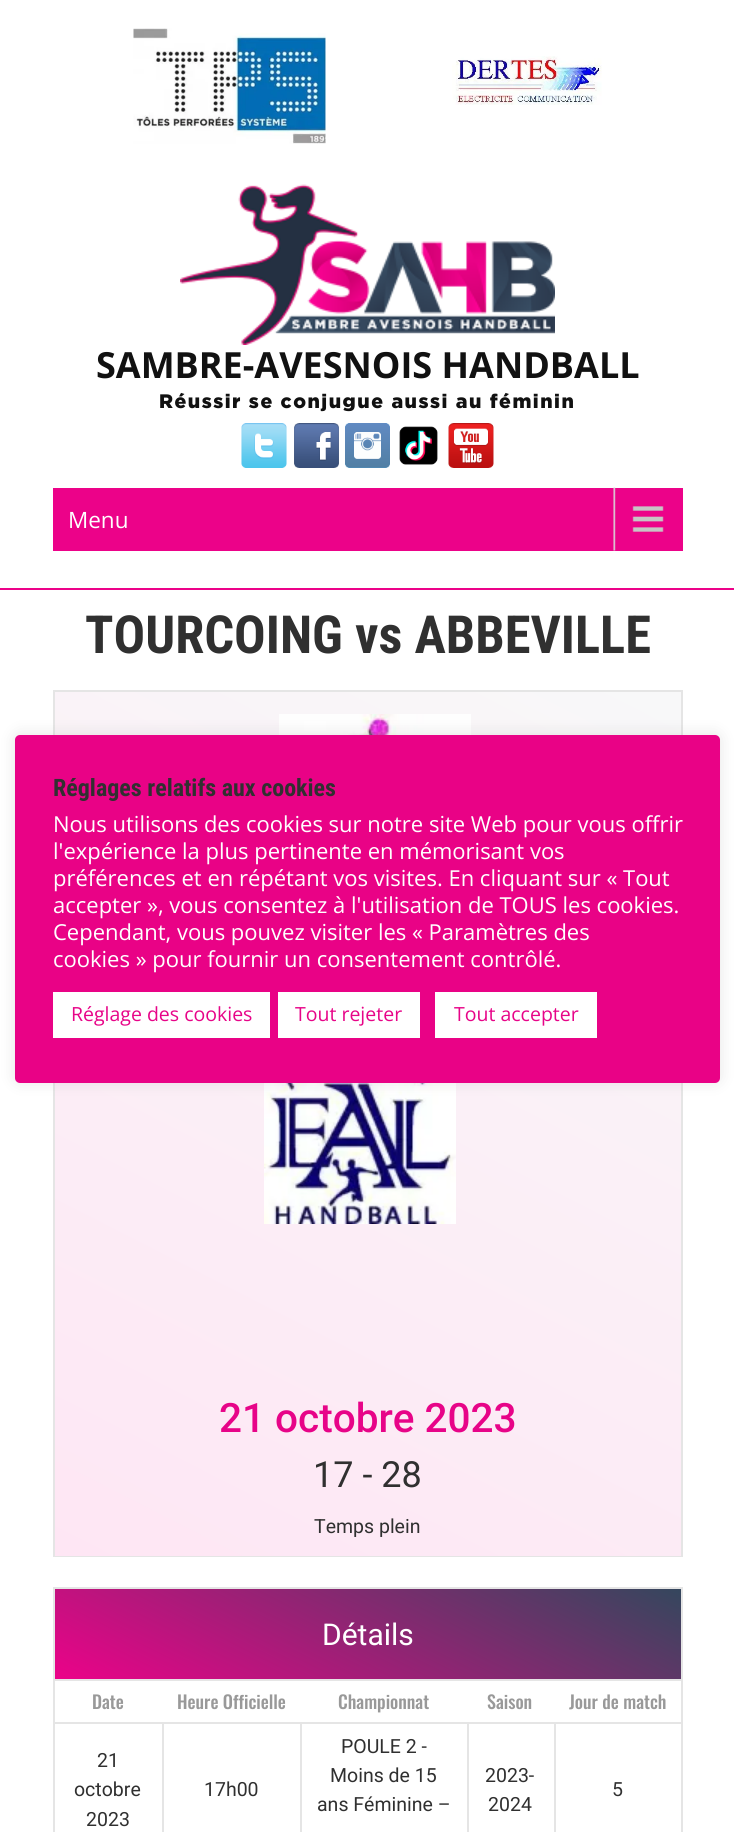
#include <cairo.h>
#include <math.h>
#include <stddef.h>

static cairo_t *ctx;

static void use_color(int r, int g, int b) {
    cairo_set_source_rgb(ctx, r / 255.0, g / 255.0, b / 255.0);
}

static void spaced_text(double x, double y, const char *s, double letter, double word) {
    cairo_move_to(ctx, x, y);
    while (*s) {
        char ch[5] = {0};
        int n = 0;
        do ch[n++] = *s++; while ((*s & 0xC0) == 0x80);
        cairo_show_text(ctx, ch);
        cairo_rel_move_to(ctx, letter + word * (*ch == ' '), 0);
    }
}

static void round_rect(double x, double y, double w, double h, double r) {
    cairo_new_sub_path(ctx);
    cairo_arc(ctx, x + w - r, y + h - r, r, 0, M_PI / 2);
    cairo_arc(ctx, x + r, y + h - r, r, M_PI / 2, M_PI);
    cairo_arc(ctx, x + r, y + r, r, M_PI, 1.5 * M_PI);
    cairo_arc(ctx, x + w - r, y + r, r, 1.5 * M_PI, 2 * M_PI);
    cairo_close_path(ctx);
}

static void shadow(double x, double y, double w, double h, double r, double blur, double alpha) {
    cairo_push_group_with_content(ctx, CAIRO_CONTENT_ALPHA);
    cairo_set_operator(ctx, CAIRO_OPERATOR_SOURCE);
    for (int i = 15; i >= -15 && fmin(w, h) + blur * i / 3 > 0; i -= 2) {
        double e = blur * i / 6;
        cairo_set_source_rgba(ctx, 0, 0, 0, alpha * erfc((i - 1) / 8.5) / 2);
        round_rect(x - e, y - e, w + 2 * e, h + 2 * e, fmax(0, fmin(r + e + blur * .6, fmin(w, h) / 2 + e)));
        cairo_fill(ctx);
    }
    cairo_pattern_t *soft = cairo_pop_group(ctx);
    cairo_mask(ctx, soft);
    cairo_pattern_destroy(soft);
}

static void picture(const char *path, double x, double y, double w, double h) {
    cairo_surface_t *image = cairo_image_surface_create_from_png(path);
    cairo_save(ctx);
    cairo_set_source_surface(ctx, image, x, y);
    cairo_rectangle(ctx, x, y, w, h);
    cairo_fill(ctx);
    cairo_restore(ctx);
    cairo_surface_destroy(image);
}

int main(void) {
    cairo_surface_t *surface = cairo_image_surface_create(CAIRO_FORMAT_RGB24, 734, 1832);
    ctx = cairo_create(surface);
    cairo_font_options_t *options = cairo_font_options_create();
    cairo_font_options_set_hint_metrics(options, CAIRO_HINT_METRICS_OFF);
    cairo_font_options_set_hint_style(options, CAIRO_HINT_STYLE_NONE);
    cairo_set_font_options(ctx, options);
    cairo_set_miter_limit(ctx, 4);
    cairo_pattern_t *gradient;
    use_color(255, 255, 255);
    cairo_paint(ctx);
    picture("img1.png", 133, 28, 193, 116);
    picture("img2.png", 452, 56, 150, 49);
    use_color(236, 2, 137);
    cairo_rectangle(ctx, 0, 588, 734, 2);
    cairo_fill(ctx);
    picture("img3.png", 180, 184, 375, 161);
    cairo_select_font_face(ctx, "Open Sans", CAIRO_FONT_SLANT_NORMAL, CAIRO_FONT_WEIGHT_BOLD);
    cairo_set_font_size(ctx, 36);
    use_color(17, 17, 17);
    cairo_move_to(ctx, 96, 378);
    cairo_show_text(ctx, "SAMBRE-AVESNOIS HANDBALL");
    cairo_select_font_face(ctx, "Gotham Black", CAIRO_FONT_SLANT_NORMAL, CAIRO_FONT_WEIGHT_NORMAL);
    cairo_set_font_size(ctx, 19.5);
    spaced_text(159, 408, "Réussir se conjugue aussi au féminin", 1.5, 0);
    picture("img4.png", 241, 423, 46, 45);
    picture("img5.png", 294, 423, 45, 45);
    picture("img6.png", 345, 423, 45, 45);
    picture("img7.png", 399, 426, 39, 39);
    picture("img8.png", 448, 423, 46, 45);
    use_color(236, 2, 137);
    cairo_rectangle(ctx, 53, 488, 630, 63);
    cairo_fill(ctx);
    picture("img9.png", 613, 487, 51, 64);
    cairo_select_font_face(ctx, "Open Sans", CAIRO_FONT_SLANT_NORMAL, CAIRO_FONT_WEIGHT_NORMAL);
    cairo_set_font_size(ctx, 22.5);
    use_color(255, 255, 255);
    cairo_move_to(ctx, 68, 528);
    cairo_show_text(ctx, "Menu");
    cairo_select_font_face(ctx, "Roboto Condensed", CAIRO_FONT_SLANT_NORMAL, CAIRO_FONT_WEIGHT_BOLD);
    cairo_set_font_size(ctx, 52.5);
    use_color(48, 48, 48);
    cairo_move_to(ctx, 85, 653);
    cairo_show_text(ctx, "TOURCOING vs ABBEVILLE");
    use_color(229, 229, 229);
    cairo_rectangle(ctx, 53, 690, 630, 2);
    cairo_fill(ctx);
    cairo_rectangle(ctx, 681, 690, 2, 867);
    cairo_fill(ctx);
    cairo_rectangle(ctx, 53, 1556, 630, 1);
    cairo_fill(ctx);
    cairo_rectangle(ctx, 53, 690, 2, 867);
    cairo_fill(ctx);
    gradient = cairo_pattern_create_linear(128, 1595, 608, 654);
    cairo_pattern_add_color_stop_rgba(gradient, 0, 0.996, 0.902, 0.957, 1);
    cairo_pattern_add_color_stop_rgba(gradient, 1, 0.973, 0.973, 0.976, 1);
    cairo_set_source(ctx, gradient);
    cairo_pattern_destroy(gradient);
    cairo_rectangle(ctx, 55, 692, 626, 864);
    cairo_fill(ctx);
    picture("img10.png", 279, 714, 192, 21);
    picture("img11.png", 264, 1083, 192, 141);
    cairo_select_font_face(ctx, "Roboto Medium", CAIRO_FONT_SLANT_NORMAL, CAIRO_FONT_WEIGHT_NORMAL);
    cairo_set_font_size(ctx, 40.5);
    use_color(231, 4, 136);
    cairo_move_to(ctx, 219, 1432);
    cairo_show_text(ctx, "21 octobre 2023");
    cairo_select_font_face(ctx, "Roboto", CAIRO_FONT_SLANT_NORMAL, CAIRO_FONT_WEIGHT_NORMAL);
    cairo_set_font_size(ctx, 36);
    use_color(48, 48, 48);
    cairo_move_to(ctx, 313, 1487);
    cairo_show_text(ctx, "17 - 28");
    cairo_set_font_size(ctx, 19.5);
    cairo_move_to(ctx, 314, 1533);
    cairo_show_text(ctx, "Temps plein");
    gradient = cairo_pattern_create_linear(285, 1796, 450, 1471);
    cairo_pattern_add_color_stop_rgba(gradient, 0, 0.925, 0.008, 0.537, 1);
    cairo_pattern_add_color_stop_rgba(gradient, 1, 0.204, 0.278, 0.365, 1);
    cairo_set_source(ctx, gradient);
    cairo_pattern_destroy(gradient);
    cairo_rectangle(ctx, 55, 1589, 626, 90);
    cairo_fill(ctx);
    use_color(229, 229, 229);
    cairo_rectangle(ctx, 53, 1587, 630, 2);
    cairo_fill(ctx);
    cairo_rectangle(ctx, 681, 1587, 2, 92);
    cairo_fill(ctx);
    cairo_rectangle(ctx, 53, 1587, 2, 92);
    cairo_fill(ctx);
    cairo_set_font_size(ctx, 30);
    use_color(255, 255, 255);
    cairo_move_to(ctx, 322, 1645);
    cairo_show_text(ctx, "Détails");
    use_color(229, 229, 229);
    cairo_rectangle(ctx, 53, 1679, 630, 2);
    cairo_fill(ctx);
    cairo_rectangle(ctx, 681, 1679, 2, 153);
    cairo_fill(ctx);
    cairo_rectangle(ctx, 53, 1679, 2, 153);
    cairo_fill(ctx);
    cairo_select_font_face(ctx, "Oswald Medium", CAIRO_FONT_SLANT_NORMAL, CAIRO_FONT_WEIGHT_NORMAL);
    cairo_set_font_size(ctx, 18);
    use_color(153, 153, 153);
    cairo_move_to(ctx, 92, 1709);
    cairo_show_text(ctx, "Date");
    cairo_move_to(ctx, 177, 1709);
    cairo_show_text(ctx, "Heure Officielle");
    cairo_move_to(ctx, 338, 1709);
    cairo_show_text(ctx, "Championnat");
    cairo_move_to(ctx, 487, 1709);
    cairo_show_text(ctx, "Saison");
    cairo_move_to(ctx, 569, 1709);
    cairo_show_text(ctx, "Jour de match");
    use_color(229, 229, 229);
    cairo_rectangle(ctx, 554, 1722, 129, 2);
    cairo_fill(ctx);
    cairo_rectangle(ctx, 554, 1722, 2, 110);
    cairo_fill(ctx);
    cairo_rectangle(ctx, 467, 1722, 88, 2);
    cairo_fill(ctx);
    cairo_rectangle(ctx, 467, 1722, 2, 110);
    cairo_fill(ctx);
    cairo_rectangle(ctx, 300, 1722, 168, 2);
    cairo_fill(ctx);
    cairo_rectangle(ctx, 300, 1722, 2, 110);
    cairo_fill(ctx);
    cairo_rectangle(ctx, 162, 1722, 140, 2);
    cairo_fill(ctx);
    cairo_rectangle(ctx, 162, 1722, 2, 110);
    cairo_fill(ctx);
    cairo_rectangle(ctx, 53, 1722, 111, 2);
    cairo_fill(ctx);
    cairo_select_font_face(ctx, "Roboto", CAIRO_FONT_SLANT_NORMAL, CAIRO_FONT_WEIGHT_NORMAL);
    cairo_set_font_size(ctx, 19.5);
    use_color(48, 48, 48);
    cairo_move_to(ctx, 97, 1767);
    cairo_show_text(ctx, "21");
    cairo_move_to(ctx, 74, 1796);
    cairo_show_text(ctx, "octobre");
    cairo_move_to(ctx, 86, 1826);
    cairo_show_text(ctx, "2023");
    cairo_move_to(ctx, 204, 1796);
    cairo_show_text(ctx, "17h00");
    cairo_move_to(ctx, 341, 1753);
    cairo_show_text(ctx, "POULE 2 -");
    cairo_move_to(ctx, 330, 1782);
    cairo_show_text(ctx, "Moins de 15");
    cairo_move_to(ctx, 317, 1811);
    cairo_show_text(ctx, "ans Féminine –");
    cairo_move_to(ctx, 485, 1782);
    cairo_show_text(ctx, "2023-");
    cairo_move_to(ctx, 488, 1811);
    cairo_show_text(ctx, "2024");
    cairo_move_to(ctx, 612, 1796);
    cairo_show_text(ctx, "5");
    use_color(172, 171, 171);
    shadow(15, 734, 705, 348, 5, 7.5, 0.3);
    use_color(233, 2, 134);
    round_rect(15, 735, 705, 348, 5);
    cairo_fill(ctx);
    cairo_select_font_face(ctx, "Roboto Condensed", CAIRO_FONT_SLANT_NORMAL, CAIRO_FONT_WEIGHT_BOLD);
    cairo_set_font_size(ctx, 24);
    use_color(48, 48, 48);
    cairo_move_to(ctx, 53, 796);
    cairo_show_text(ctx, "Réglages relatifs aux cookies");
    cairo_select_font_face(ctx, "Open Sans", CAIRO_FONT_SLANT_NORMAL, CAIRO_FONT_WEIGHT_NORMAL);
    cairo_set_font_size(ctx, 22);
    use_color(255, 255, 255);
    cairo_move_to(ctx, 53, 832);
    cairo_show_text(ctx, "Nous utilisons des cookies sur notre site Web pour vous offrir");
    cairo_move_to(ctx, 53, 859);
    cairo_show_text(ctx, "l'expérience la plus pertinente en mémorisant vos");
    cairo_move_to(ctx, 53, 886);
    cairo_show_text(ctx, "préférences et en répétant vos visites. En cliquant sur « Tout");
    cairo_move_to(ctx, 53, 913);
    cairo_show_text(ctx, "accepter », vous consentez à l'utilisation de TOUS les cookies.");
    cairo_move_to(ctx, 53, 940);
    cairo_show_text(ctx, "Cependant, vous pouvez visiter les « Paramètres des");
    cairo_move_to(ctx, 53, 967);
    cairo_show_text(ctx, "cookies » pour fournir un consentement contrôlé.");
    cairo_rectangle(ctx, 53, 992, 217, 46);
    cairo_fill(ctx);
    cairo_set_font_size(ctx, 19.5);
    use_color(231, 4, 136);
    cairo_move_to(ctx, 71, 1021);
    cairo_show_text(ctx, "Réglage des cookies");
    use_color(255, 255, 255);
    cairo_rectangle(ctx, 278, 992, 142, 46);
    cairo_fill(ctx);
    use_color(231, 4, 136);
    cairo_move_to(ctx, 295, 1021);
    cairo_show_text(ctx, "Tout rejeter");
    use_color(255, 255, 255);
    cairo_rectangle(ctx, 435, 992, 162, 46);
    cairo_fill(ctx);
    use_color(231, 4, 136);
    cairo_move_to(ctx, 454, 1021);
    cairo_show_text(ctx, "Tout accepter");
    cairo_surface_write_to_png(surface, "result.png");
    cairo_font_options_destroy(options);
    cairo_destroy(ctx);
    cairo_surface_destroy(surface);
    return 0;
}
